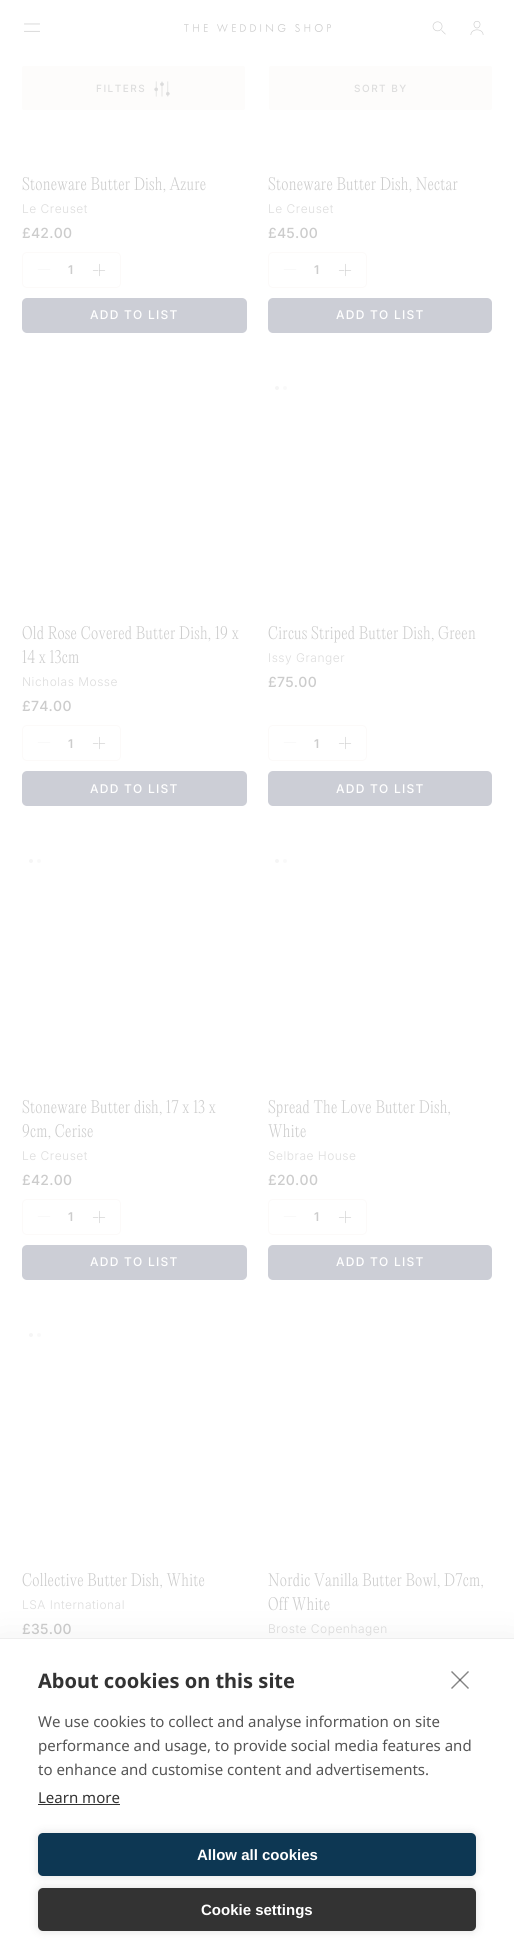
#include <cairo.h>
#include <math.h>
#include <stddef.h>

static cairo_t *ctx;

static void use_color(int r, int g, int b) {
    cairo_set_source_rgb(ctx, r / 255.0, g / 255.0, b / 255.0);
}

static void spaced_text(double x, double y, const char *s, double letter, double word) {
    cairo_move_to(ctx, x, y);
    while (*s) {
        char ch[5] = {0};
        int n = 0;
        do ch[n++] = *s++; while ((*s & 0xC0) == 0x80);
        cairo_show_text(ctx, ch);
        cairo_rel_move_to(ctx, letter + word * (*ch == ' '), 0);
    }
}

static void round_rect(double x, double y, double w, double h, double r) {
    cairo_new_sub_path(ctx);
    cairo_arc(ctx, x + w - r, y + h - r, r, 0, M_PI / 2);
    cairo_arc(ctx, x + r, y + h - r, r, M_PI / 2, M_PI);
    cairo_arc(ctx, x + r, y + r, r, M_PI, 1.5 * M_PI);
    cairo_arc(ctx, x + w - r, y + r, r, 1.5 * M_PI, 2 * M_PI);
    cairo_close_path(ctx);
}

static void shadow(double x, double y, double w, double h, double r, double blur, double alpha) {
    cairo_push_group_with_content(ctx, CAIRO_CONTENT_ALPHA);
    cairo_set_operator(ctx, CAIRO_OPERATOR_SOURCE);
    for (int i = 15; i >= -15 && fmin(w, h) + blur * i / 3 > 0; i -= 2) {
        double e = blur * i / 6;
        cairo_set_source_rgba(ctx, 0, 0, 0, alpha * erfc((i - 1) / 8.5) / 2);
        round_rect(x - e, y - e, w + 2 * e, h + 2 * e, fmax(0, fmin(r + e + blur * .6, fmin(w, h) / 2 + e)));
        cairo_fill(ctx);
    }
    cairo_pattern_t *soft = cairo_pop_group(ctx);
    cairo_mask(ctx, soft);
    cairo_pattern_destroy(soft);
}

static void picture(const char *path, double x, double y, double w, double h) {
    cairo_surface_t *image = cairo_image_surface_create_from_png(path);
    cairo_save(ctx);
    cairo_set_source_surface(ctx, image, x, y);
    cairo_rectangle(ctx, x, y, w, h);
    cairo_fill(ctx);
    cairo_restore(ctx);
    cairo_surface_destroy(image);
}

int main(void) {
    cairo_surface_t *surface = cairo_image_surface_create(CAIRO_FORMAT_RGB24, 514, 1956);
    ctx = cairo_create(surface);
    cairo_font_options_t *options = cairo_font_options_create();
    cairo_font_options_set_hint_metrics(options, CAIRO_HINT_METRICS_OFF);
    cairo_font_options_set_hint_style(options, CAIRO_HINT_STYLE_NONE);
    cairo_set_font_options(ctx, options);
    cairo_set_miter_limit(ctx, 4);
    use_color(255, 255, 255);
    cairo_paint(ctx);
    picture("img1.png", 24, 23, 16, 9);
    picture("img2.png", 184, 24, 147, 8);
    picture("img3.png", 432, 21, 14, 14);
    picture("img4.png", 470, 20, 14, 15);
    use_color(253, 252, 251);
    round_rect(22, 66, 223, 44, 2);
    cairo_fill(ctx);
    cairo_select_font_face(ctx, "Inter Medium", CAIRO_FONT_SLANT_NORMAL, CAIRO_FONT_WEIGHT_NORMAL);
    cairo_set_font_size(ctx, 10);
    use_color(221, 221, 221);
    spaced_text(96, 92, "FILTERS", 1.5, 0);
    picture("img5.png", 154, 81, 16, 16);
    use_color(253, 252, 251);
    round_rect(269, 66, 223, 44, 2);
    cairo_fill(ctx);
    use_color(221, 221, 221);
    spaced_text(354, 92, "SORT BY", 1.5, 0);
    cairo_select_font_face(ctx, "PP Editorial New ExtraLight", CAIRO_FONT_SLANT_NORMAL, CAIRO_FONT_WEIGHT_NORMAL);
    cairo_set_font_size(ctx, 16);
    use_color(204, 204, 204);
    spaced_text(22, 190, "Stoneware Butter Dish, Azure", 0.25, 0);
    cairo_select_font_face(ctx, "Inter Light", CAIRO_FONT_SLANT_NORMAL, CAIRO_FONT_WEIGHT_NORMAL);
    cairo_set_font_size(ctx, 12);
    use_color(221, 221, 221);
    spaced_text(22, 213, "Le Creuset", 0.5, 0);
    cairo_select_font_face(ctx, "Inter Medium", CAIRO_FONT_SLANT_NORMAL, CAIRO_FONT_WEIGHT_NORMAL);
    cairo_set_font_size(ctx, 14);
    use_color(204, 204, 204);
    spaced_text(22, 238, "£42.00", 0.25, 0);
    round_rect(22.5, 252.5, 98, 35, 4.5);
    use_color(252, 250, 249);
    cairo_set_line_width(ctx, 1);
    cairo_stroke(ctx);
    cairo_new_path(ctx);
    cairo_move_to(ctx, 38, 269.5);
    cairo_line_to(ctx, 50, 269.5);
    use_color(245, 245, 245);
    cairo_set_line_width(ctx, 0.6);
    cairo_set_line_cap(ctx, CAIRO_LINE_CAP_ROUND);
    cairo_stroke(ctx);
    cairo_select_font_face(ctx, "Inter SemiBold", CAIRO_FONT_SLANT_NORMAL, CAIRO_FONT_WEIGHT_NORMAL);
    cairo_set_font_size(ctx, 12);
    use_color(204, 204, 204);
    spaced_text(68, 274, "1", 1, 0);
    picture("img6.png", 92, 263, 14, 14);
    use_color(204, 206, 214);
    round_rect(22, 298, 225, 35, 5);
    cairo_fill(ctx);
    cairo_select_font_face(ctx, "Inter Medium", CAIRO_FONT_SLANT_NORMAL, CAIRO_FONT_WEIGHT_NORMAL);
    use_color(255, 255, 255);
    spaced_text(90, 319, "ADD TO LIST", 1.25, 0);
    cairo_select_font_face(ctx, "PP Editorial New ExtraLight", CAIRO_FONT_SLANT_NORMAL, CAIRO_FONT_WEIGHT_NORMAL);
    cairo_set_font_size(ctx, 16);
    use_color(204, 204, 204);
    spaced_text(268, 190, "Stoneware Butter Dish, Nectar", 0.25, 0);
    cairo_select_font_face(ctx, "Inter Light", CAIRO_FONT_SLANT_NORMAL, CAIRO_FONT_WEIGHT_NORMAL);
    cairo_set_font_size(ctx, 12);
    use_color(221, 221, 221);
    spaced_text(268, 213, "Le Creuset", 0.5, 0);
    cairo_select_font_face(ctx, "Inter Medium", CAIRO_FONT_SLANT_NORMAL, CAIRO_FONT_WEIGHT_NORMAL);
    cairo_set_font_size(ctx, 14);
    use_color(204, 204, 204);
    spaced_text(268, 238, "£45.00", 0.25, 0);
    round_rect(268.5, 252.5, 98, 35, 4.5);
    use_color(252, 250, 249);
    cairo_set_line_width(ctx, 1);
    cairo_set_line_cap(ctx, CAIRO_LINE_CAP_BUTT);
    cairo_stroke(ctx);
    cairo_new_path(ctx);
    cairo_move_to(ctx, 284, 269.5);
    cairo_line_to(ctx, 296, 269.5);
    use_color(245, 245, 245);
    cairo_set_line_width(ctx, 0.6);
    cairo_set_line_cap(ctx, CAIRO_LINE_CAP_ROUND);
    cairo_stroke(ctx);
    cairo_select_font_face(ctx, "Inter SemiBold", CAIRO_FONT_SLANT_NORMAL, CAIRO_FONT_WEIGHT_NORMAL);
    cairo_set_font_size(ctx, 12);
    use_color(204, 204, 204);
    spaced_text(314, 274, "1", 1, 0);
    picture("img6.png", 338, 263, 14, 14);
    use_color(204, 206, 214);
    round_rect(268, 298, 224, 35, 5);
    cairo_fill(ctx);
    cairo_select_font_face(ctx, "Inter Medium", CAIRO_FONT_SLANT_NORMAL, CAIRO_FONT_WEIGHT_NORMAL);
    use_color(255, 255, 255);
    spaced_text(336, 319, "ADD TO LIST", 1.25, 0);
    cairo_select_font_face(ctx, "PP Editorial New ExtraLight", CAIRO_FONT_SLANT_NORMAL, CAIRO_FONT_WEIGHT_NORMAL);
    cairo_set_font_size(ctx, 16);
    use_color(204, 204, 204);
    spaced_text(22, 639, "Old Rose Covered Butter Dish, 19 x", 0.25, 0);
    spaced_text(22, 663, "14 x 13cm", 0.25, 0);
    cairo_select_font_face(ctx, "Inter Light", CAIRO_FONT_SLANT_NORMAL, CAIRO_FONT_WEIGHT_NORMAL);
    cairo_set_font_size(ctx, 12);
    use_color(221, 221, 221);
    spaced_text(22, 686, "Nicholas Mosse", 0.5, 0);
    cairo_select_font_face(ctx, "Inter Medium", CAIRO_FONT_SLANT_NORMAL, CAIRO_FONT_WEIGHT_NORMAL);
    cairo_set_font_size(ctx, 14);
    use_color(204, 204, 204);
    spaced_text(22, 711, "£74.00", 0.25, 0);
    round_rect(22.5, 725.5, 98, 35, 4.5);
    use_color(252, 250, 249);
    cairo_set_line_width(ctx, 1);
    cairo_set_line_cap(ctx, CAIRO_LINE_CAP_BUTT);
    cairo_stroke(ctx);
    cairo_new_path(ctx);
    cairo_move_to(ctx, 38, 742.5);
    cairo_line_to(ctx, 50, 742.5);
    use_color(245, 245, 245);
    cairo_set_line_width(ctx, 0.6);
    cairo_set_line_cap(ctx, CAIRO_LINE_CAP_ROUND);
    cairo_stroke(ctx);
    cairo_select_font_face(ctx, "Inter SemiBold", CAIRO_FONT_SLANT_NORMAL, CAIRO_FONT_WEIGHT_NORMAL);
    cairo_set_font_size(ctx, 12);
    use_color(204, 204, 204);
    spaced_text(68, 748, "1", 1, 0);
    picture("img6.png", 92, 736, 14, 14);
    use_color(204, 206, 214);
    round_rect(22, 771, 225, 35, 5);
    cairo_fill(ctx);
    cairo_select_font_face(ctx, "Inter Medium", CAIRO_FONT_SLANT_NORMAL, CAIRO_FONT_WEIGHT_NORMAL);
    use_color(255, 255, 255);
    spaced_text(90, 793, "ADD TO LIST", 1.25, 0);
    use_color(245, 245, 245);
    cairo_new_path(ctx);
    cairo_arc(ctx, 277, 388, 2, 0, 2 * M_PI);
    cairo_fill(ctx);
    use_color(249, 249, 249);
    cairo_arc(ctx, 285, 388, 2, 0, 2 * M_PI);
    cairo_fill(ctx);
    cairo_select_font_face(ctx, "PP Editorial New ExtraLight", CAIRO_FONT_SLANT_NORMAL, CAIRO_FONT_WEIGHT_NORMAL);
    cairo_set_font_size(ctx, 16);
    use_color(204, 204, 204);
    spaced_text(268, 639, "Circus Striped Butter Dish, Green", 0.25, 0);
    cairo_select_font_face(ctx, "Inter Light", CAIRO_FONT_SLANT_NORMAL, CAIRO_FONT_WEIGHT_NORMAL);
    cairo_set_font_size(ctx, 12);
    use_color(221, 221, 221);
    spaced_text(268, 662, "Issy Granger", 0.5, 0);
    cairo_select_font_face(ctx, "Inter Medium", CAIRO_FONT_SLANT_NORMAL, CAIRO_FONT_WEIGHT_NORMAL);
    cairo_set_font_size(ctx, 14);
    use_color(204, 204, 204);
    spaced_text(268, 687, "£75.00", 0.25, 0);
    round_rect(268.5, 725.5, 98, 35, 4.5);
    use_color(252, 250, 249);
    cairo_set_line_width(ctx, 1);
    cairo_set_line_cap(ctx, CAIRO_LINE_CAP_BUTT);
    cairo_stroke(ctx);
    cairo_new_path(ctx);
    cairo_move_to(ctx, 284, 742.5);
    cairo_line_to(ctx, 296, 742.5);
    use_color(245, 245, 245);
    cairo_set_line_width(ctx, 0.6);
    cairo_set_line_cap(ctx, CAIRO_LINE_CAP_ROUND);
    cairo_stroke(ctx);
    cairo_select_font_face(ctx, "Inter SemiBold", CAIRO_FONT_SLANT_NORMAL, CAIRO_FONT_WEIGHT_NORMAL);
    cairo_set_font_size(ctx, 12);
    use_color(204, 204, 204);
    spaced_text(314, 748, "1", 1, 0);
    picture("img6.png", 338, 736, 14, 14);
    use_color(204, 206, 214);
    round_rect(268, 771, 224, 35, 5);
    cairo_fill(ctx);
    cairo_select_font_face(ctx, "Inter Medium", CAIRO_FONT_SLANT_NORMAL, CAIRO_FONT_WEIGHT_NORMAL);
    use_color(255, 255, 255);
    spaced_text(336, 793, "ADD TO LIST", 1.25, 0);
    use_color(245, 245, 245);
    cairo_new_path(ctx);
    cairo_arc(ctx, 31, 861, 2, 0, 2 * M_PI);
    cairo_fill(ctx);
    use_color(249, 249, 249);
    cairo_arc(ctx, 39, 861, 2, 0, 2 * M_PI);
    cairo_fill(ctx);
    cairo_select_font_face(ctx, "PP Editorial New ExtraLight", CAIRO_FONT_SLANT_NORMAL, CAIRO_FONT_WEIGHT_NORMAL);
    cairo_set_font_size(ctx, 16);
    use_color(204, 204, 204);
    spaced_text(22, 1113, "Stoneware Butter dish, 17 x 13 x", 0.25, 0);
    spaced_text(22, 1137, "9cm, Cerise", 0.25, 0);
    cairo_select_font_face(ctx, "Inter Light", CAIRO_FONT_SLANT_NORMAL, CAIRO_FONT_WEIGHT_NORMAL);
    cairo_set_font_size(ctx, 12);
    use_color(221, 221, 221);
    spaced_text(22, 1160, "Le Creuset", 0.5, 0);
    cairo_select_font_face(ctx, "Inter Medium", CAIRO_FONT_SLANT_NORMAL, CAIRO_FONT_WEIGHT_NORMAL);
    cairo_set_font_size(ctx, 14);
    use_color(204, 204, 204);
    spaced_text(22, 1185, "£42.00", 0.25, 0);
    round_rect(22.5, 1199.5, 98, 35, 4.5);
    use_color(252, 250, 249);
    cairo_set_line_width(ctx, 1);
    cairo_set_line_cap(ctx, CAIRO_LINE_CAP_BUTT);
    cairo_stroke(ctx);
    cairo_new_path(ctx);
    cairo_move_to(ctx, 38, 1216.5);
    cairo_line_to(ctx, 50, 1216.5);
    use_color(245, 245, 245);
    cairo_set_line_width(ctx, 0.6);
    cairo_set_line_cap(ctx, CAIRO_LINE_CAP_ROUND);
    cairo_stroke(ctx);
    cairo_select_font_face(ctx, "Inter SemiBold", CAIRO_FONT_SLANT_NORMAL, CAIRO_FONT_WEIGHT_NORMAL);
    cairo_set_font_size(ctx, 12);
    use_color(204, 204, 204);
    spaced_text(68, 1221, "1", 1, 0);
    picture("img6.png", 92, 1210, 14, 14);
    use_color(204, 206, 214);
    round_rect(22, 1245, 225, 35, 5);
    cairo_fill(ctx);
    cairo_select_font_face(ctx, "Inter Medium", CAIRO_FONT_SLANT_NORMAL, CAIRO_FONT_WEIGHT_NORMAL);
    use_color(255, 255, 255);
    spaced_text(90, 1266, "ADD TO LIST", 1.25, 0);
    use_color(245, 245, 245);
    cairo_new_path(ctx);
    cairo_arc(ctx, 277, 861, 2, 0, 2 * M_PI);
    cairo_fill(ctx);
    use_color(249, 249, 249);
    cairo_arc(ctx, 285, 861, 2, 0, 2 * M_PI);
    cairo_fill(ctx);
    cairo_select_font_face(ctx, "PP Editorial New ExtraLight", CAIRO_FONT_SLANT_NORMAL, CAIRO_FONT_WEIGHT_NORMAL);
    cairo_set_font_size(ctx, 16);
    use_color(204, 204, 204);
    spaced_text(268, 1113, "Spread The Love Butter Dish,", 0.25, 0);
    spaced_text(268, 1137, "White", 0.25, 0);
    cairo_select_font_face(ctx, "Inter Light", CAIRO_FONT_SLANT_NORMAL, CAIRO_FONT_WEIGHT_NORMAL);
    cairo_set_font_size(ctx, 12);
    use_color(221, 221, 221);
    spaced_text(268, 1160, "Selbrae House", 0.5, 0);
    cairo_select_font_face(ctx, "Inter Medium", CAIRO_FONT_SLANT_NORMAL, CAIRO_FONT_WEIGHT_NORMAL);
    cairo_set_font_size(ctx, 14);
    use_color(204, 204, 204);
    spaced_text(268, 1185, "£20.00", 0.25, 0);
    round_rect(268.5, 1199.5, 98, 35, 4.5);
    use_color(252, 250, 249);
    cairo_set_line_width(ctx, 1);
    cairo_set_line_cap(ctx, CAIRO_LINE_CAP_BUTT);
    cairo_stroke(ctx);
    cairo_new_path(ctx);
    cairo_move_to(ctx, 284, 1216.5);
    cairo_line_to(ctx, 296, 1216.5);
    use_color(245, 245, 245);
    cairo_set_line_width(ctx, 0.6);
    cairo_set_line_cap(ctx, CAIRO_LINE_CAP_ROUND);
    cairo_stroke(ctx);
    cairo_select_font_face(ctx, "Inter SemiBold", CAIRO_FONT_SLANT_NORMAL, CAIRO_FONT_WEIGHT_NORMAL);
    cairo_set_font_size(ctx, 12);
    use_color(204, 204, 204);
    spaced_text(314, 1221, "1", 1, 0);
    picture("img6.png", 338, 1210, 14, 14);
    use_color(204, 206, 214);
    round_rect(268, 1245, 224, 35, 5);
    cairo_fill(ctx);
    cairo_select_font_face(ctx, "Inter Medium", CAIRO_FONT_SLANT_NORMAL, CAIRO_FONT_WEIGHT_NORMAL);
    use_color(255, 255, 255);
    spaced_text(336, 1266, "ADD TO LIST", 1.25, 0);
    use_color(245, 245, 245);
    cairo_new_path(ctx);
    cairo_arc(ctx, 31, 1335, 2, 0, 2 * M_PI);
    cairo_fill(ctx);
    use_color(249, 249, 249);
    cairo_arc(ctx, 39, 1335, 2, 0, 2 * M_PI);
    cairo_fill(ctx);
    cairo_select_font_face(ctx, "PP Editorial New ExtraLight", CAIRO_FONT_SLANT_NORMAL, CAIRO_FONT_WEIGHT_NORMAL);
    cairo_set_font_size(ctx, 16);
    use_color(204, 204, 204);
    spaced_text(22, 1586, "Collective Butter Dish, White", 0.25, 0);
    cairo_select_font_face(ctx, "Inter Light", CAIRO_FONT_SLANT_NORMAL, CAIRO_FONT_WEIGHT_NORMAL);
    cairo_set_font_size(ctx, 12);
    use_color(221, 221, 221);
    spaced_text(22, 1609, "LSA International", 0.5, 0);
    cairo_select_font_face(ctx, "Inter Medium", CAIRO_FONT_SLANT_NORMAL, CAIRO_FONT_WEIGHT_NORMAL);
    cairo_set_font_size(ctx, 14);
    use_color(204, 204, 204);
    spaced_text(22, 1634, "£35.00", 0.25, 0);
    cairo_select_font_face(ctx, "PP Editorial New ExtraLight", CAIRO_FONT_SLANT_NORMAL, CAIRO_FONT_WEIGHT_NORMAL);
    cairo_set_font_size(ctx, 16);
    spaced_text(268, 1586, "Nordic Vanilla Butter Bowl, D7cm,", 0.25, 0);
    spaced_text(268, 1610, "Off White", 0.25, 0);
    cairo_select_font_face(ctx, "Inter Light", CAIRO_FONT_SLANT_NORMAL, CAIRO_FONT_WEIGHT_NORMAL);
    cairo_set_font_size(ctx, 12);
    use_color(221, 221, 221);
    spaced_text(268, 1633, "Broste Copenhagen", 0.5, 0);
    use_color(0, 0, 0);
    shadow(0, 1648, 514, 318, 0, 20, 0.1);
    use_color(255, 255, 255);
    cairo_rectangle(ctx, 0, 1639, 514, 317);
    cairo_fill(ctx);
    use_color(238, 238, 238);
    cairo_rectangle(ctx, 0, 1638, 514, 1);
    cairo_fill(ctx);
    use_color(133, 133, 133);
    cairo_new_path(ctx);
    cairo_move_to(ctx, 451, 1688);
    cairo_line_to(ctx, 468, 1671);
    cairo_line_to(ctx, 469, 1672);
    cairo_line_to(ctx, 452, 1689);
    cairo_close_path(ctx);
    cairo_fill(ctx);
    cairo_set_source_rgba(ctx, 0.2, 0.2, 0.2, 0.6);
    cairo_new_path(ctx);
    cairo_move_to(ctx, 452, 1671);
    cairo_line_to(ctx, 469, 1688);
    cairo_line_to(ctx, 468, 1689);
    cairo_line_to(ctx, 451, 1672);
    cairo_close_path(ctx);
    cairo_fill(ctx);
    cairo_select_font_face(ctx, "Noto Sans", CAIRO_FONT_SLANT_NORMAL, CAIRO_FONT_WEIGHT_BOLD);
    cairo_set_font_size(ctx, 20);
    use_color(51, 51, 51);
    cairo_move_to(ctx, 38, 1688);
    cairo_show_text(ctx, "About cookies on this site");
    cairo_select_font_face(ctx, "Noto Sans", CAIRO_FONT_SLANT_NORMAL, CAIRO_FONT_WEIGHT_NORMAL);
    cairo_set_font_size(ctx, 15);
    use_color(85, 85, 85);
    cairo_move_to(ctx, 38, 1727);
    cairo_show_text(ctx, "We use cookies to collect and analyse information on site");
    cairo_move_to(ctx, 38, 1751);
    cairo_show_text(ctx, "performance and usage, to provide social media features and");
    cairo_move_to(ctx, 38, 1775);
    cairo_show_text(ctx, "to enhance and customise content and advertisements.");
    use_color(51, 51, 51);
    cairo_move_to(ctx, 38, 1803);
    cairo_show_text(ctx, "Learn more");
    cairo_rectangle(ctx, 38, 1804, 82, 1);
    cairo_fill(ctx);
    use_color(0, 0, 0);
    shadow(38, 1833, 438, 43, 5, 5, 0.12);
    use_color(13, 55, 83);
    round_rect(38, 1833, 438, 43, 5);
    cairo_fill(ctx);
    cairo_select_font_face(ctx, "Liberation Sans", CAIRO_FONT_SLANT_NORMAL, CAIRO_FONT_WEIGHT_BOLD);
    use_color(255, 255, 255);
    cairo_move_to(ctx, 197, 1860);
    cairo_show_text(ctx, "Allow all cookies");
    use_color(0, 0, 0);
    shadow(38, 1888, 438, 43, 5, 5, 0.12);
    use_color(51, 51, 51);
    round_rect(38, 1888, 438, 43, 5);
    cairo_fill(ctx);
    use_color(255, 255, 255);
    cairo_move_to(ctx, 201, 1915);
    cairo_show_text(ctx, "Cookie settings");
    cairo_surface_write_to_png(surface, "result.png");
    cairo_font_options_destroy(options);
    cairo_destroy(ctx);
    cairo_surface_destroy(surface);
    return 0;
}
